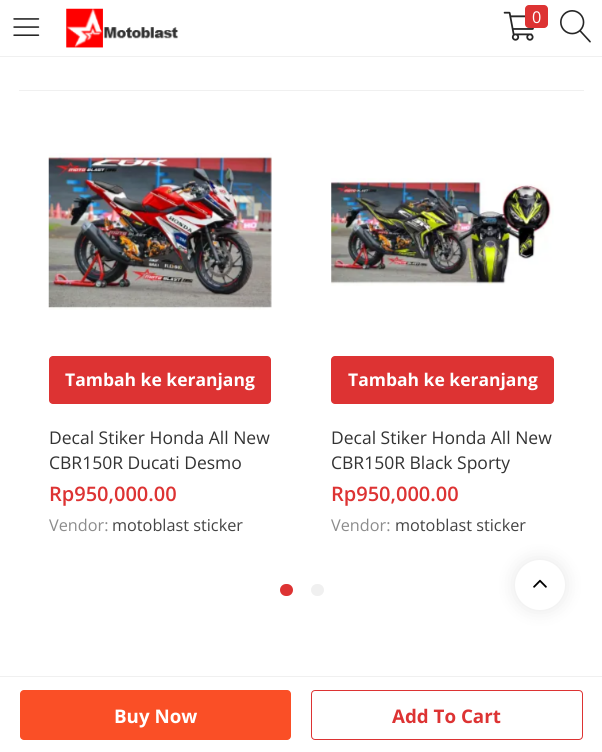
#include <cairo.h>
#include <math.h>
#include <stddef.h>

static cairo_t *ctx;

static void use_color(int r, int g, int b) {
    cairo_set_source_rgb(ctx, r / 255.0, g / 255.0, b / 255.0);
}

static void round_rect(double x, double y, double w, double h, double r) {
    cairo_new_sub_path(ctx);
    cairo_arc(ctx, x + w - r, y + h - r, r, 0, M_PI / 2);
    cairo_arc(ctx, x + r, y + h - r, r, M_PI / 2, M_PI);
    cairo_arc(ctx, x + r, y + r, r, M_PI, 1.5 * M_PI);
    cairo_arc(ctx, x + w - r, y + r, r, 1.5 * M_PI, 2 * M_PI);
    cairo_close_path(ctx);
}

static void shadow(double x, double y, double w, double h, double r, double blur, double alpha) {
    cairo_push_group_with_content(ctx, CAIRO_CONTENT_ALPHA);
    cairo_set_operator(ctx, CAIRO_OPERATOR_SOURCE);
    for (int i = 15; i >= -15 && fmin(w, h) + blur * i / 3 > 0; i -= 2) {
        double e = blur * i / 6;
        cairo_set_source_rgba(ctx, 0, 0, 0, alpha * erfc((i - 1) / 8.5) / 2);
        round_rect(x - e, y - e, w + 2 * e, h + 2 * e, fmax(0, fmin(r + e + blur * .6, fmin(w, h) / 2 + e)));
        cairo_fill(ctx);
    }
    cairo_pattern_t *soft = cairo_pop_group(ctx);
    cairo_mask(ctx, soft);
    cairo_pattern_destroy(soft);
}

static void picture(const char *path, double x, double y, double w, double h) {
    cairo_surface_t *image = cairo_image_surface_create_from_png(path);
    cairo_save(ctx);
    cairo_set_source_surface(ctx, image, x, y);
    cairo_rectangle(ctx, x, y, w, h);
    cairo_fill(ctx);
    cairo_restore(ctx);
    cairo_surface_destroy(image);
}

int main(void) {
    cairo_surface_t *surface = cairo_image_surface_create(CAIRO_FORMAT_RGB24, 602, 752);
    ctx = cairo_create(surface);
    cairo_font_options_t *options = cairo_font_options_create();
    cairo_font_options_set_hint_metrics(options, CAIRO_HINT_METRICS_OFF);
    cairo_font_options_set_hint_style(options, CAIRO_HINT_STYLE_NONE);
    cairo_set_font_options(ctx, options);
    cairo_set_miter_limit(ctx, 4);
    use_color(255, 255, 255);
    cairo_paint(ctx);
    use_color(240, 240, 240);
    cairo_rectangle(ctx, 0, 56, 602, 1);
    cairo_fill(ctx);
    picture("img1.png", 13, 18, 27, 18);
    picture("img2.png", 66, 8, 113, 40);
    picture("img3.png", 503, 11, 31, 30);
    use_color(221, 51, 51);
    round_rect(525, 5, 23, 23, 4);
    cairo_fill(ctx);
    cairo_select_font_face(ctx, "Open Sans", CAIRO_FONT_SLANT_NORMAL, CAIRO_FONT_WEIGHT_NORMAL);
    cairo_set_font_size(ctx, 16.25);
    use_color(255, 255, 255);
    cairo_move_to(ctx, 532, 23);
    cairo_show_text(ctx, "0");
    picture("img4.png", 560, 10, 31, 33);
    use_color(240, 240, 240);
    cairo_rectangle(ctx, 19, 90, 565, 1);
    cairo_fill(ctx);
    picture("img5.png", 48, 153, 224, 157);
    use_color(221, 51, 51);
    round_rect(49, 356, 222, 48, 4);
    cairo_fill(ctx);
    cairo_select_font_face(ctx, "Open Sans", CAIRO_FONT_SLANT_NORMAL, CAIRO_FONT_WEIGHT_BOLD);
    cairo_set_font_size(ctx, 17.5);
    use_color(255, 255, 255);
    cairo_move_to(ctx, 65, 386);
    cairo_show_text(ctx, "Tambah ke keranjang");
    cairo_select_font_face(ctx, "Open Sans", CAIRO_FONT_SLANT_NORMAL, CAIRO_FONT_WEIGHT_NORMAL);
    use_color(51, 51, 51);
    cairo_move_to(ctx, 49, 444);
    cairo_show_text(ctx, "Decal Stiker Honda All New");
    cairo_move_to(ctx, 49, 469);
    cairo_show_text(ctx, "CBR150R Ducati Desmo");
    cairo_select_font_face(ctx, "Open Sans SemiBold", CAIRO_FONT_SLANT_NORMAL, CAIRO_FONT_WEIGHT_NORMAL);
    cairo_set_font_size(ctx, 20);
    use_color(221, 51, 51);
    cairo_move_to(ctx, 49, 501);
    cairo_show_text(ctx, "Rp950,000.00");
    cairo_select_font_face(ctx, "Open Sans", CAIRO_FONT_SLANT_NORMAL, CAIRO_FONT_WEIGHT_NORMAL);
    cairo_set_font_size(ctx, 16.25);
    use_color(140, 140, 140);
    cairo_move_to(ctx, 49, 531);
    cairo_show_text(ctx, "Vendor:");
    use_color(68, 68, 68);
    cairo_move_to(ctx, 112, 531);
    cairo_show_text(ctx, "motoblast sticker");
    picture("img6.png", 331, 178, 223, 108);
    use_color(221, 51, 51);
    round_rect(331, 356, 223, 48, 4);
    cairo_fill(ctx);
    cairo_select_font_face(ctx, "Open Sans", CAIRO_FONT_SLANT_NORMAL, CAIRO_FONT_WEIGHT_BOLD);
    cairo_set_font_size(ctx, 17.5);
    use_color(255, 255, 255);
    cairo_move_to(ctx, 348, 386);
    cairo_show_text(ctx, "Tambah ke keranjang");
    cairo_select_font_face(ctx, "Open Sans", CAIRO_FONT_SLANT_NORMAL, CAIRO_FONT_WEIGHT_NORMAL);
    use_color(51, 51, 51);
    cairo_move_to(ctx, 331, 444);
    cairo_show_text(ctx, "Decal Stiker Honda All New");
    cairo_move_to(ctx, 331, 469);
    cairo_show_text(ctx, "CBR150R Black Sporty");
    cairo_select_font_face(ctx, "Open Sans SemiBold", CAIRO_FONT_SLANT_NORMAL, CAIRO_FONT_WEIGHT_NORMAL);
    cairo_set_font_size(ctx, 20);
    use_color(221, 51, 51);
    cairo_move_to(ctx, 331, 501);
    cairo_show_text(ctx, "Rp950,000.00");
    cairo_select_font_face(ctx, "Open Sans", CAIRO_FONT_SLANT_NORMAL, CAIRO_FONT_WEIGHT_NORMAL);
    cairo_set_font_size(ctx, 16.25);
    use_color(140, 140, 140);
    cairo_move_to(ctx, 331, 531);
    cairo_show_text(ctx, "Vendor:");
    use_color(68, 68, 68);
    cairo_move_to(ctx, 395, 531);
    cairo_show_text(ctx, "motoblast sticker");
    use_color(221, 51, 51);
    round_rect(280, 584, 13, 12, 6);
    cairo_fill(ctx);
    use_color(240, 240, 240);
    round_rect(311, 584, 13, 12, 6);
    cairo_fill(ctx);
    cairo_rectangle(ctx, 0, 676, 602, 1);
    cairo_fill(ctx);
    use_color(250, 79, 38);
    round_rect(20, 690, 271, 50, 4);
    cairo_fill(ctx);
    cairo_select_font_face(ctx, "Open Sans", CAIRO_FONT_SLANT_NORMAL, CAIRO_FONT_WEIGHT_BOLD);
    cairo_set_font_size(ctx, 18.75);
    use_color(255, 255, 255);
    cairo_move_to(ctx, 114, 723);
    cairo_show_text(ctx, "Buy Now");
    round_rect(311.5, 690.5, 271, 49, 3.5);
    use_color(221, 51, 51);
    cairo_set_line_width(ctx, 1);
    cairo_stroke(ctx);
    cairo_move_to(ctx, 392, 723);
    cairo_show_text(ctx, "Add To Cart");
    use_color(0, 0, 0);
    shadow(515, 560, 50, 50, 25, 9, 0.1);
    use_color(255, 255, 255);
    cairo_arc(ctx, 540, 585, 25, 0, 2 * M_PI);
    cairo_fill(ctx);
    picture("img7.png", 533, 579, 14, 9);
    cairo_surface_write_to_png(surface, "result.png");
    cairo_font_options_destroy(options);
    cairo_destroy(ctx);
    cairo_surface_destroy(surface);
    return 0;
}
